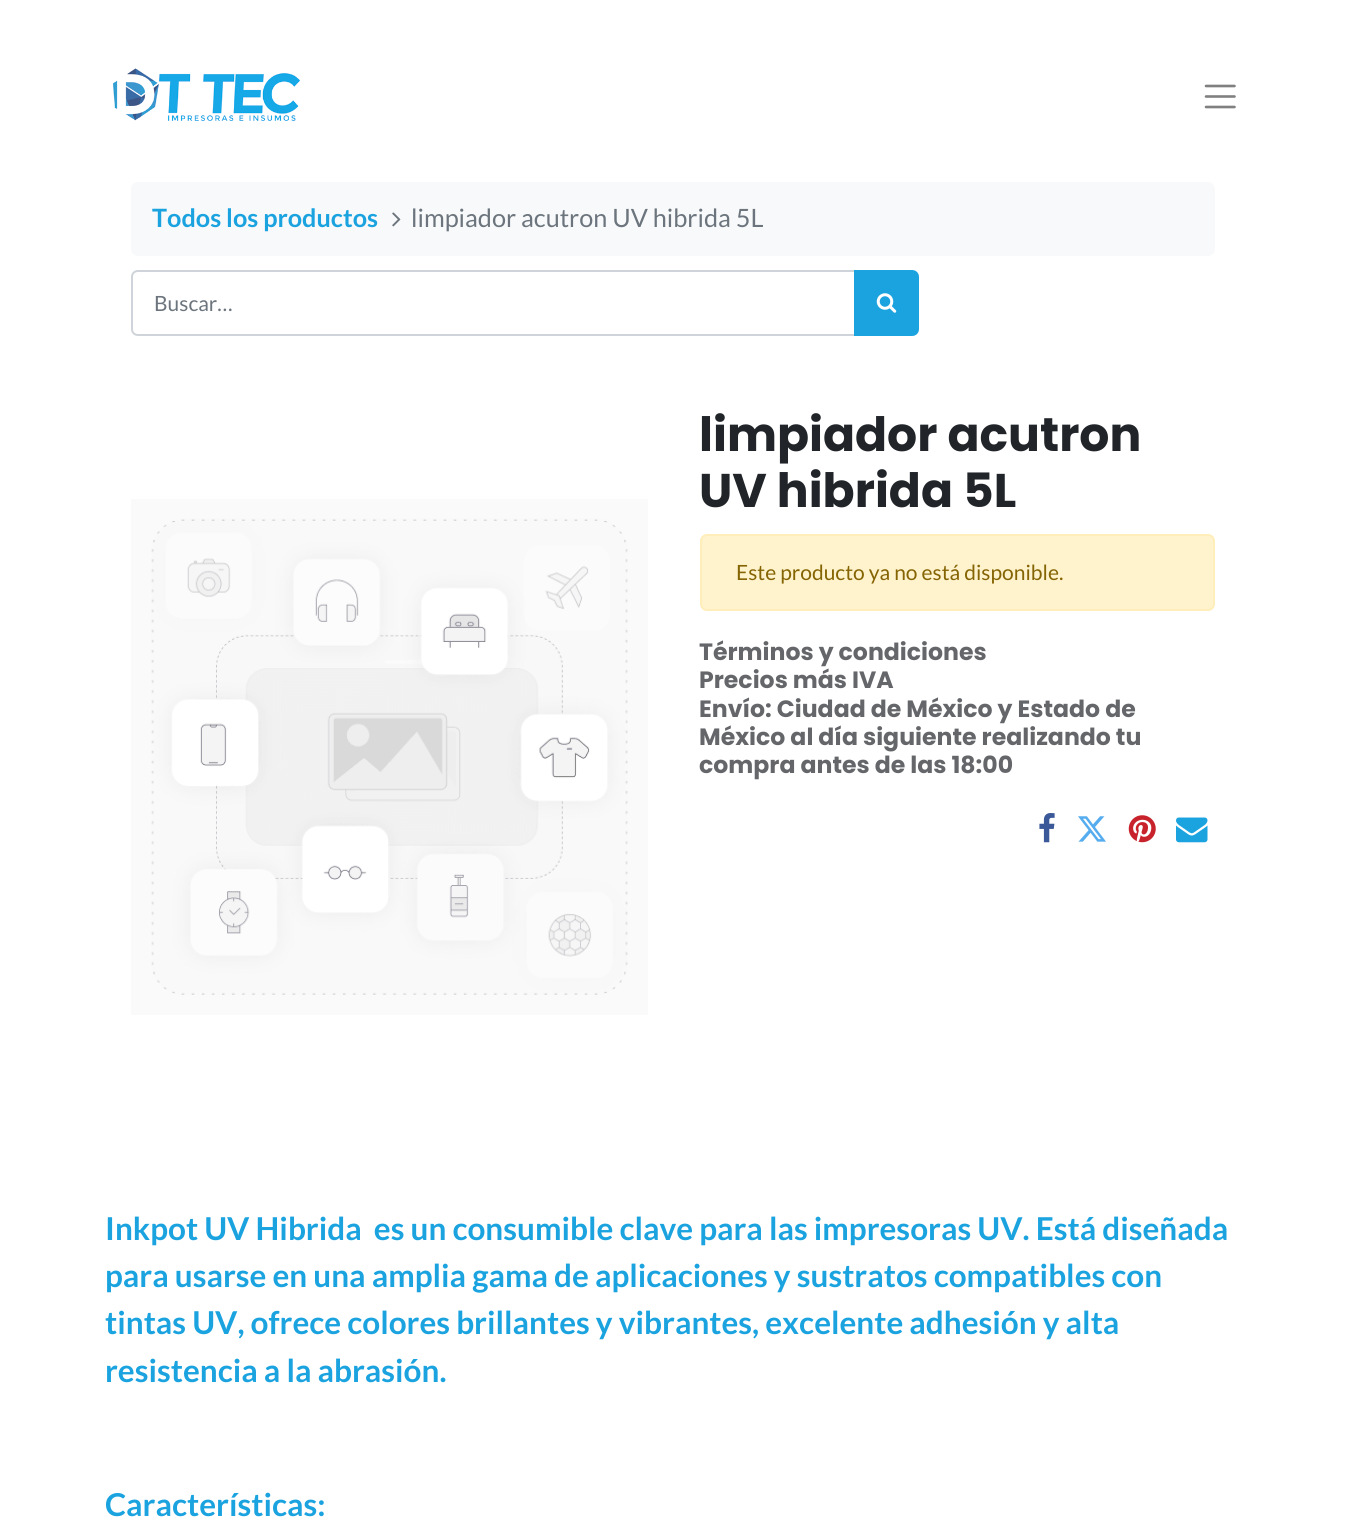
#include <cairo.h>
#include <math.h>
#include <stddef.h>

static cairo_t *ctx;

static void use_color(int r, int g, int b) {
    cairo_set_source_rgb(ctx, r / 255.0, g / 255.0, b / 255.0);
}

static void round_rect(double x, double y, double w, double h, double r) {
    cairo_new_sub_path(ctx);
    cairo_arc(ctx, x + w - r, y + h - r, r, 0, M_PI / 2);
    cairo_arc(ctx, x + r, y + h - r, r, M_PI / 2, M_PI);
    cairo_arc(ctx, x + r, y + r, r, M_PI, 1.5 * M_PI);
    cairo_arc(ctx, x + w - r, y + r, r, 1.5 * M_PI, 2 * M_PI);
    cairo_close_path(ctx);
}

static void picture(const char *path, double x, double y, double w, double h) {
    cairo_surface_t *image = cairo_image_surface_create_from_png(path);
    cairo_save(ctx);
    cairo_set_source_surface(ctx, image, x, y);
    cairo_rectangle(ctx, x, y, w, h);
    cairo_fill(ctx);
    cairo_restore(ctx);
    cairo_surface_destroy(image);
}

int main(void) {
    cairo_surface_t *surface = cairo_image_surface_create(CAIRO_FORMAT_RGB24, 1345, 1522);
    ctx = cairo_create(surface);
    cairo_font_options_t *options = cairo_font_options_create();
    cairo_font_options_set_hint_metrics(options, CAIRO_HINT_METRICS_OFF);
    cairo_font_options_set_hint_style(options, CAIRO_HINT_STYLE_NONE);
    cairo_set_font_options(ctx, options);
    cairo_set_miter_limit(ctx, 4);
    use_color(255, 255, 255);
    cairo_paint(ctx);
    picture("img1.png", 113, 68, 187, 54);
    cairo_new_path(ctx);
    cairo_move_to(ctx, 1206, 86);
    cairo_line_to(ctx, 1234.5, 86);
    cairo_move_to(ctx, 1206, 96.5);
    cairo_line_to(ctx, 1234.5, 96.5);
    cairo_move_to(ctx, 1206, 107);
    cairo_line_to(ctx, 1234.5, 107);
    use_color(128, 128, 128);
    cairo_set_line_width(ctx, 2.6);
    cairo_set_line_cap(ctx, CAIRO_LINE_CAP_ROUND);
    cairo_stroke(ctx);
    use_color(248, 249, 250);
    round_rect(131, 182, 1084, 74, 7);
    cairo_fill(ctx);
    cairo_select_font_face(ctx, "Lato", CAIRO_FONT_SLANT_NORMAL, CAIRO_FONT_WEIGHT_BOLD);
    cairo_set_font_size(ctx, 25.25);
    use_color(27, 163, 224);
    cairo_move_to(ctx, 152, 227);
    cairo_show_text(ctx, "Todos los productos");
    picture("img2.png", 392, 212, 9, 15);
    cairo_select_font_face(ctx, "Lato", CAIRO_FONT_SLANT_NORMAL, CAIRO_FONT_WEIGHT_NORMAL);
    use_color(108, 117, 125);
    cairo_move_to(ctx, 411, 227);
    cairo_show_text(ctx, "limpiador acutron UV hibrida 5L");
    cairo_new_path(ctx);
    cairo_move_to(ctx, 138, 271);
    cairo_line_to(ctx, 855, 271);
    cairo_line_to(ctx, 855, 335);
    cairo_line_to(ctx, 138, 335);
    cairo_curve_to(ctx, 134.5, 335, 132, 332.5, 132, 329);
    cairo_line_to(ctx, 132, 277);
    cairo_curve_to(ctx, 132, 273.5, 134.5, 271, 138, 271);
    cairo_close_path(ctx);
    use_color(206, 212, 218);
    cairo_set_line_width(ctx, 2);
    cairo_set_line_cap(ctx, CAIRO_LINE_CAP_BUTT);
    cairo_stroke(ctx);
    cairo_set_font_size(ctx, 21);
    use_color(108, 117, 125);
    cairo_move_to(ctx, 154, 311);
    cairo_show_text(ctx, "Buscar…");
    use_color(27, 163, 224);
    cairo_new_path(ctx);
    cairo_move_to(ctx, 855, 271);
    cairo_line_to(ctx, 912, 271);
    cairo_curve_to(ctx, 915.5, 271, 918, 273.5, 918, 277);
    cairo_line_to(ctx, 918, 329);
    cairo_curve_to(ctx, 918, 332.5, 915.5, 335, 912, 335);
    cairo_line_to(ctx, 855, 335);
    cairo_close_path(ctx);
    cairo_fill_preserve(ctx);
    cairo_stroke(ctx);
    picture("img3.png", 876, 293, 21, 20);
    picture("img4.png", 131, 499, 517, 516);
    cairo_select_font_face(ctx, "Poppins", CAIRO_FONT_SLANT_NORMAL, CAIRO_FONT_WEIGHT_BOLD);
    cairo_set_font_size(ctx, 47.25);
    use_color(33, 37, 41);
    cairo_move_to(ctx, 699, 451);
    cairo_show_text(ctx, "limpiador acutron");
    cairo_move_to(ctx, 699, 507);
    cairo_show_text(ctx, "UV hibrida 5L");
    use_color(255, 243, 205);
    round_rect(701, 535, 513, 75, 6);
    cairo_fill_preserve(ctx);
    use_color(255, 238, 186);
    cairo_stroke(ctx);
    cairo_select_font_face(ctx, "Lato", CAIRO_FONT_SLANT_NORMAL, CAIRO_FONT_WEIGHT_NORMAL);
    cairo_set_font_size(ctx, 21);
    use_color(133, 100, 4);
    cairo_move_to(ctx, 736, 580);
    cairo_show_text(ctx, "Este producto ya no está disponible.");
    cairo_select_font_face(ctx, "Poppins", CAIRO_FONT_SLANT_NORMAL, CAIRO_FONT_WEIGHT_BOLD);
    cairo_set_font_size(ctx, 23.6);
    use_color(100, 102, 105);
    cairo_move_to(ctx, 699, 660);
    cairo_show_text(ctx, "Términos y condiciones");
    cairo_move_to(ctx, 699, 688);
    cairo_show_text(ctx, "Precios más IVA");
    cairo_move_to(ctx, 699, 717);
    cairo_show_text(ctx, "Envío: Ciudad de México y Estado de");
    cairo_move_to(ctx, 699, 745);
    cairo_show_text(ctx, "México al día siguiente realizando tu");
    cairo_move_to(ctx, 699, 773);
    cairo_show_text(ctx, "compra antes de las 18:00");
    picture("img5.png", 1039, 813, 16, 30);
    picture("img6.png", 1078, 816, 28, 26);
    picture("img7.png", 1128, 815, 28, 28);
    picture("img8.png", 1176, 817, 32, 26);
    cairo_select_font_face(ctx, "Lato", CAIRO_FONT_SLANT_NORMAL, CAIRO_FONT_WEIGHT_BOLD);
    cairo_set_font_size(ctx, 31.5);
    use_color(27, 163, 224);
    cairo_move_to(ctx, 105, 1240);
    cairo_show_text(ctx, "Inkpot UV Hibrida  es un consumible clave para las impresoras UV. Está diseñada");
    cairo_move_to(ctx, 105, 1287);
    cairo_show_text(ctx, "para usarse en una amplia gama de aplicaciones y sustratos compatibles con");
    cairo_move_to(ctx, 105, 1334);
    cairo_show_text(ctx, "tintas UV, ofrece colores brillantes y vibrantes, excelente adhesión y alta");
    cairo_move_to(ctx, 105, 1382);
    cairo_show_text(ctx, "resistencia a la abrasión.");
    cairo_move_to(ctx, 105, 1516);
    cairo_show_text(ctx, "Características:");
    cairo_surface_write_to_png(surface, "result.png");
    cairo_font_options_destroy(options);
    cairo_destroy(ctx);
    cairo_surface_destroy(surface);
    return 0;
}
